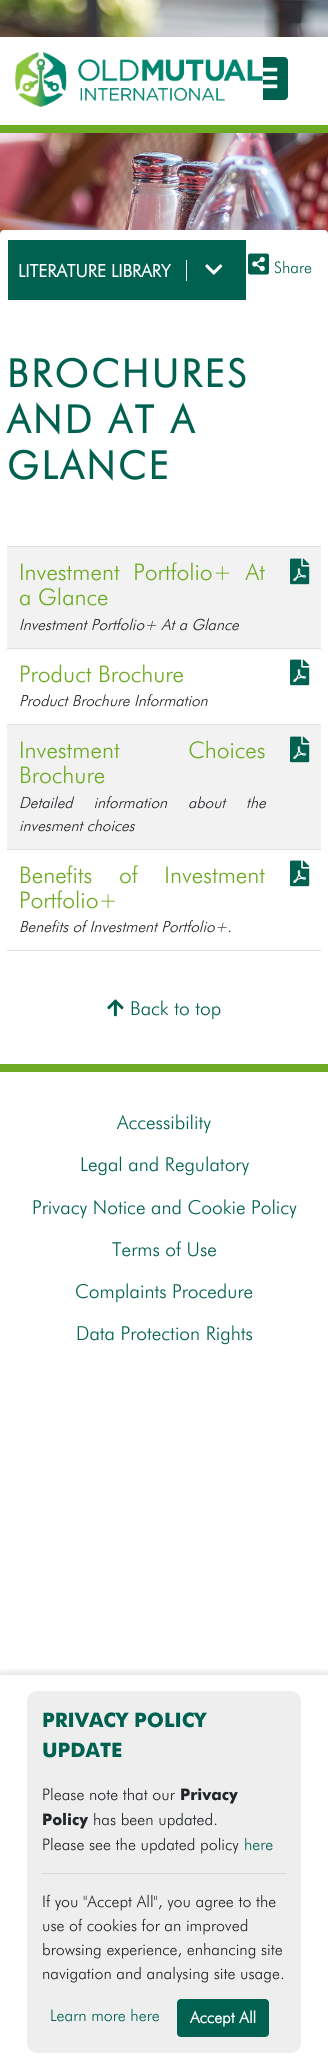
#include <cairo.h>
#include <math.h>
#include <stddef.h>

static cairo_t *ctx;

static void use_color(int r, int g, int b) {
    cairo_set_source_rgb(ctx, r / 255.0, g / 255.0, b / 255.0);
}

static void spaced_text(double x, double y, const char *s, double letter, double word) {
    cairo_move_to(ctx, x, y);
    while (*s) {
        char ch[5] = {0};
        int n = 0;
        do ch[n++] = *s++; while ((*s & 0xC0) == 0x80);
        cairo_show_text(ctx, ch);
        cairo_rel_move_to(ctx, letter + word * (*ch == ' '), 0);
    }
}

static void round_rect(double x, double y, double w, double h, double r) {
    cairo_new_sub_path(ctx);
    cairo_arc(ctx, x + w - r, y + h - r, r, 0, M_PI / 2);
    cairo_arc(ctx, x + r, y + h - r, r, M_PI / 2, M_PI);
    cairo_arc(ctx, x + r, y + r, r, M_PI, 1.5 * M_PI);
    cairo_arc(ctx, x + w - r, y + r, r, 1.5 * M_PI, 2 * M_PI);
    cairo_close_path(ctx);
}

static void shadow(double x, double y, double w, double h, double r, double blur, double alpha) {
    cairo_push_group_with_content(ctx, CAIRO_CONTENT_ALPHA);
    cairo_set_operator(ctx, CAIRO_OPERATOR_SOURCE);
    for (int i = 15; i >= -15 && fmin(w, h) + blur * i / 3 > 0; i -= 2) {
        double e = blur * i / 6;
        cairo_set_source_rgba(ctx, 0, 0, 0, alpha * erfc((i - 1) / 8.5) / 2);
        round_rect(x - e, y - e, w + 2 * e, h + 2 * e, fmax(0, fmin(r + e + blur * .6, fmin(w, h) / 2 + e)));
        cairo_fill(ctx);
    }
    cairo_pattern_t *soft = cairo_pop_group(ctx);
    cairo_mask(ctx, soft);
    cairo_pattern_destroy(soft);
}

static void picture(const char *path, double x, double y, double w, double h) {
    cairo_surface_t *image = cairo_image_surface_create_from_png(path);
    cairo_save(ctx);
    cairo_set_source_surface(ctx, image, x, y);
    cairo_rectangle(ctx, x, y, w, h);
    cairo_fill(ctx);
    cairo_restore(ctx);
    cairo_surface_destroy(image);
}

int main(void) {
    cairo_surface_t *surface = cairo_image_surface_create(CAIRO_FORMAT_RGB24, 328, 2069);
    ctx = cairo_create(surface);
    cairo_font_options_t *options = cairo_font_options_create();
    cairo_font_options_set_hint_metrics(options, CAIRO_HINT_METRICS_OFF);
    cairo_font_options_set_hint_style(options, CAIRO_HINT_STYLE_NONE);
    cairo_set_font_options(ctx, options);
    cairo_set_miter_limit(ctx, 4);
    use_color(255, 255, 255);
    cairo_paint(ctx);
    picture("img1.png", 0, 0, 328, 234);
    use_color(255, 255, 255);
    cairo_rectangle(ctx, 0, 37, 328, 88);
    cairo_fill(ctx);
    use_color(110, 171, 36);
    cairo_rectangle(ctx, 0, 125, 328, 8);
    cairo_fill(ctx);
    use_color(0, 97, 80);
    round_rect(243, 57, 45, 43, 4);
    cairo_fill(ctx);
    picture("img2.png", 15, 52, 248, 55);
    picture("img3.png", 263, 67, 15, 22);
    use_color(255, 255, 255);
    round_rect(0, 230, 328, 745, 4);
    cairo_fill(ctx);
    use_color(0, 97, 80);
    cairo_rectangle(ctx, 8, 240, 238, 60);
    cairo_fill(ctx);
    cairo_select_font_face(ctx, "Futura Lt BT", CAIRO_FONT_SLANT_NORMAL, CAIRO_FONT_WEIGHT_BOLD);
    cairo_set_font_size(ctx, 17.5);
    use_color(255, 255, 255);
    cairo_move_to(ctx, 18, 277);
    cairo_show_text(ctx, "LITERATURE LIBRARY");
    cairo_rectangle(ctx, 186, 260, 1, 21);
    cairo_fill(ctx);
    picture("img4.png", 205, 264, 18, 11);
    cairo_set_font_size(ctx, 38.5);
    use_color(0, 97, 80);
    spaced_text(7, 387, "BROCHURES", 3, 0);
    spaced_text(7, 433, "AND AT A", 3, 0);
    spaced_text(7, 479, "GLANCE", 3, 0);
    use_color(222, 222, 222);
    cairo_rectangle(ctx, 7, 950, 314, 1);
    cairo_fill(ctx);
    use_color(242, 242, 242);
    cairo_rectangle(ctx, 7, 547, 314, 101);
    cairo_fill(ctx);
    use_color(222, 226, 230);
    cairo_rectangle(ctx, 7, 546, 314, 1);
    cairo_fill(ctx);
    picture("img5.png", 290, 558, 20, 27);
    cairo_select_font_face(ctx, "Futura Lt BT Light", CAIRO_FONT_SLANT_NORMAL, CAIRO_FONT_WEIGHT_NORMAL);
    cairo_set_font_size(ctx, 23);
    use_color(110, 171, 36);
    spaced_text(19, 580, "Investment Portfolio+ At", 0, 7);
    cairo_move_to(ctx, 19, 605);
    cairo_show_text(ctx, "a Glance");
    cairo_select_font_face(ctx, "Futura Lt BT Light", CAIRO_FONT_SLANT_ITALIC, CAIRO_FONT_WEIGHT_NORMAL);
    cairo_set_font_size(ctx, 15.4);
    use_color(33, 37, 41);
    cairo_move_to(ctx, 19, 630);
    cairo_show_text(ctx, "Investment Portfolio+ At a Glance");
    use_color(222, 226, 230);
    cairo_rectangle(ctx, 7, 648, 314, 1);
    cairo_fill(ctx);
    picture("img6.png", 290, 659, 20, 27);
    cairo_select_font_face(ctx, "Futura Lt BT Light", CAIRO_FONT_SLANT_NORMAL, CAIRO_FONT_WEIGHT_NORMAL);
    cairo_set_font_size(ctx, 23);
    use_color(110, 171, 36);
    cairo_move_to(ctx, 19, 682);
    cairo_show_text(ctx, "Product Brochure");
    cairo_select_font_face(ctx, "Futura Lt BT Light", CAIRO_FONT_SLANT_ITALIC, CAIRO_FONT_WEIGHT_NORMAL);
    cairo_set_font_size(ctx, 15.4);
    use_color(33, 37, 41);
    cairo_move_to(ctx, 19, 706);
    cairo_show_text(ctx, "Product Brochure Information");
    use_color(242, 242, 242);
    cairo_rectangle(ctx, 7, 725, 314, 124);
    cairo_fill(ctx);
    use_color(222, 226, 230);
    cairo_rectangle(ctx, 7, 724, 314, 1);
    cairo_fill(ctx);
    picture("img5.png", 290, 736, 20, 27);
    cairo_select_font_face(ctx, "Futura Lt BT Light", CAIRO_FONT_SLANT_NORMAL, CAIRO_FONT_WEIGHT_NORMAL);
    cairo_set_font_size(ctx, 23);
    use_color(110, 171, 36);
    spaced_text(19, 758, "Investment Choices", 0, 62);
    cairo_move_to(ctx, 19, 783);
    cairo_show_text(ctx, "Brochure");
    cairo_select_font_face(ctx, "Futura Lt BT Light", CAIRO_FONT_SLANT_ITALIC, CAIRO_FONT_WEIGHT_NORMAL);
    cairo_set_font_size(ctx, 15.4);
    use_color(33, 37, 41);
    spaced_text(19, 808, "Detailed information about the", 0, 16.5);
    cairo_move_to(ctx, 19, 831);
    cairo_show_text(ctx, "invesment choices");
    use_color(222, 226, 230);
    cairo_rectangle(ctx, 7, 849, 314, 1);
    cairo_fill(ctx);
    picture("img6.png", 290, 860, 20, 27);
    cairo_select_font_face(ctx, "Futura Lt BT Light", CAIRO_FONT_SLANT_NORMAL, CAIRO_FONT_WEIGHT_NORMAL);
    cairo_set_font_size(ctx, 23);
    use_color(110, 171, 36);
    spaced_text(19, 883, "Benefits of Investment", 0, 20);
    cairo_move_to(ctx, 19, 908);
    cairo_show_text(ctx, "Portfolio+");
    cairo_select_font_face(ctx, "Futura Lt BT Light", CAIRO_FONT_SLANT_ITALIC, CAIRO_FONT_WEIGHT_NORMAL);
    cairo_set_font_size(ctx, 15.4);
    use_color(33, 37, 41);
    cairo_move_to(ctx, 19, 932);
    cairo_show_text(ctx, "Benefits of Investment Portfolio+.");
    picture("img7.png", 248, 253, 21, 22);
    cairo_select_font_face(ctx, "Futura Lt BT Light", CAIRO_FONT_SLANT_NORMAL, CAIRO_FONT_WEIGHT_NORMAL);
    cairo_set_font_size(ctx, 16);
    use_color(0, 97, 80);
    cairo_move_to(ctx, 274, 273);
    cairo_show_text(ctx, "Share");
    picture("img8.png", 107, 999, 17, 18);
    cairo_set_font_size(ctx, 19.25);
    cairo_move_to(ctx, 130, 1015);
    cairo_show_text(ctx, "Back to top");
    use_color(110, 171, 36);
    cairo_rectangle(ctx, 0, 1064, 328, 8);
    cairo_fill(ctx);
    use_color(0, 97, 80);
    cairo_move_to(ctx, 117, 1129);
    cairo_show_text(ctx, "Accessibility");
    cairo_move_to(ctx, 80, 1171);
    cairo_show_text(ctx, "Legal and Regulatory");
    cairo_move_to(ctx, 32, 1214);
    cairo_show_text(ctx, "Privacy Notice and Cookie Policy");
    cairo_move_to(ctx, 112, 1256);
    cairo_show_text(ctx, "Terms of Use");
    cairo_move_to(ctx, 75, 1298);
    cairo_show_text(ctx, "Complaints Procedure");
    cairo_move_to(ctx, 76, 1340);
    cairo_show_text(ctx, "Data Protection Rights");
    cairo_save(ctx);
    cairo_rectangle(ctx, 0, 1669, 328, 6);
    cairo_clip(ctx);
    use_color(0, 0, 0);
    shadow(0, 1675, 328, 394, 0, 5, 0.2);
    cairo_restore(ctx);
    use_color(238, 238, 238);
    round_rect(27, 1691, 274, 362, 10);
    cairo_fill(ctx);
    cairo_select_font_face(ctx, "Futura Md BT", CAIRO_FONT_SLANT_NORMAL, CAIRO_FONT_WEIGHT_BOLD);
    cairo_set_font_size(ctx, 20);
    use_color(0, 97, 80);
    cairo_move_to(ctx, 42, 1727);
    cairo_show_text(ctx, "PRIVACY POLICY");
    cairo_move_to(ctx, 42, 1757);
    cairo_show_text(ctx, "UPDATE");
    cairo_select_font_face(ctx, "Futura Lt BT Light", CAIRO_FONT_SLANT_NORMAL, CAIRO_FONT_WEIGHT_NORMAL);
    cairo_set_font_size(ctx, 16);
    use_color(33, 37, 41);
    cairo_move_to(ctx, 42, 1800);
    cairo_show_text(ctx, "Please note that our");
    cairo_select_font_face(ctx, "Futura Md BT", CAIRO_FONT_SLANT_NORMAL, CAIRO_FONT_WEIGHT_BOLD);
    cairo_move_to(ctx, 180, 1800);
    cairo_show_text(ctx, "Privacy");
    cairo_move_to(ctx, 42, 1825);
    cairo_show_text(ctx, "Policy");
    cairo_select_font_face(ctx, "Futura Lt BT Light", CAIRO_FONT_SLANT_NORMAL, CAIRO_FONT_WEIGHT_NORMAL);
    cairo_move_to(ctx, 93, 1825);
    cairo_show_text(ctx, "has been updated.");
    cairo_move_to(ctx, 42, 1850);
    cairo_show_text(ctx, "Please see the updated policy");
    use_color(0, 97, 80);
    cairo_move_to(ctx, 244, 1850);
    cairo_show_text(ctx, "here");
    use_color(214, 214, 214);
    cairo_rectangle(ctx, 42, 1873, 244, 1);
    cairo_fill(ctx);
    use_color(33, 37, 41);
    cairo_move_to(ctx, 42, 1907);
    cairo_show_text(ctx, "If you \"Accept All\", you agree to the");
    cairo_move_to(ctx, 42, 1931);
    cairo_show_text(ctx, "use of cookies for an improved");
    cairo_move_to(ctx, 42, 1955);
    cairo_show_text(ctx, "browsing experience, enhancing site");
    cairo_move_to(ctx, 42, 1979);
    cairo_show_text(ctx, "navigation and analysing site usage.");
    use_color(0, 97, 80);
    cairo_move_to(ctx, 50, 2021);
    cairo_show_text(ctx, "Learn more here");
    round_rect(177.5, 1999.5, 91, 37, 3.5);
    cairo_fill_preserve(ctx);
    cairo_set_line_width(ctx, 1);
    cairo_stroke(ctx);
    cairo_select_font_face(ctx, "Futura Lt BT", CAIRO_FONT_SLANT_NORMAL, CAIRO_FONT_WEIGHT_BOLD);
    use_color(255, 255, 255);
    cairo_move_to(ctx, 190, 2023);
    cairo_show_text(ctx, "Accept All");
    cairo_surface_write_to_png(surface, "result.png");
    cairo_font_options_destroy(options);
    cairo_destroy(ctx);
    cairo_surface_destroy(surface);
    return 0;
}
